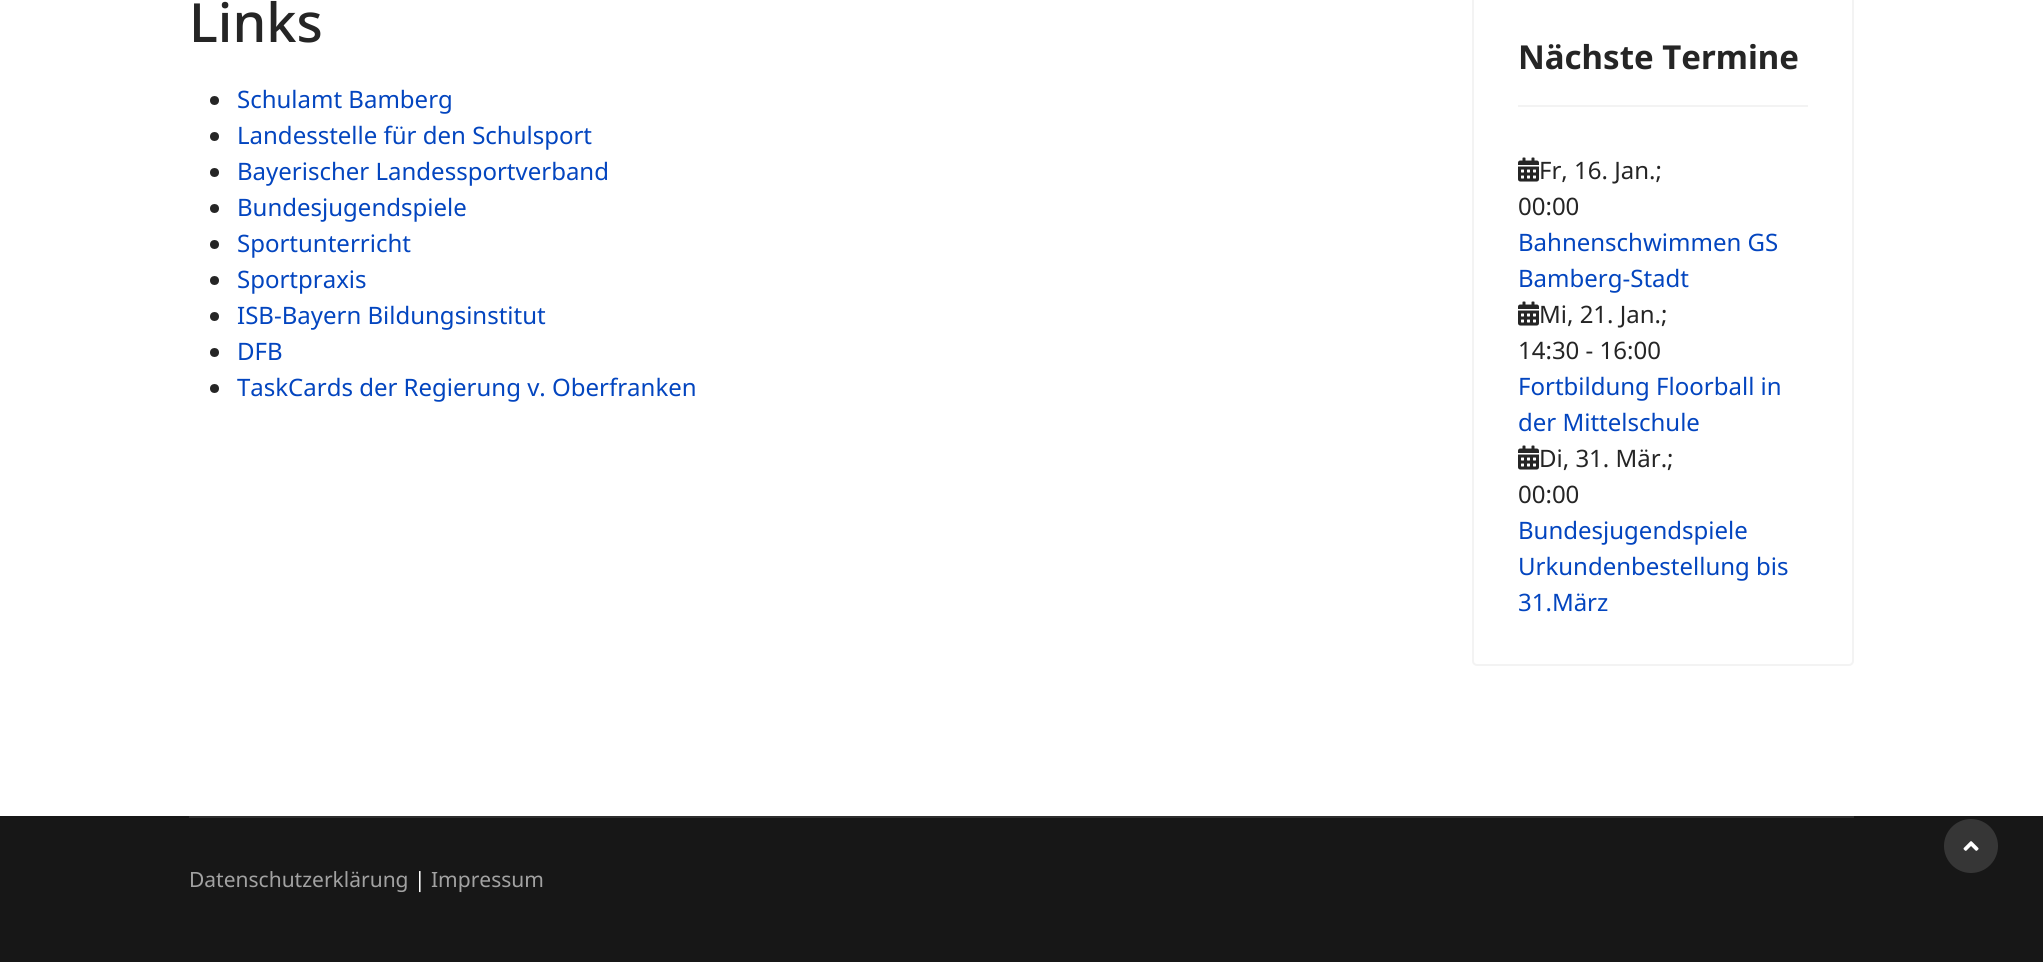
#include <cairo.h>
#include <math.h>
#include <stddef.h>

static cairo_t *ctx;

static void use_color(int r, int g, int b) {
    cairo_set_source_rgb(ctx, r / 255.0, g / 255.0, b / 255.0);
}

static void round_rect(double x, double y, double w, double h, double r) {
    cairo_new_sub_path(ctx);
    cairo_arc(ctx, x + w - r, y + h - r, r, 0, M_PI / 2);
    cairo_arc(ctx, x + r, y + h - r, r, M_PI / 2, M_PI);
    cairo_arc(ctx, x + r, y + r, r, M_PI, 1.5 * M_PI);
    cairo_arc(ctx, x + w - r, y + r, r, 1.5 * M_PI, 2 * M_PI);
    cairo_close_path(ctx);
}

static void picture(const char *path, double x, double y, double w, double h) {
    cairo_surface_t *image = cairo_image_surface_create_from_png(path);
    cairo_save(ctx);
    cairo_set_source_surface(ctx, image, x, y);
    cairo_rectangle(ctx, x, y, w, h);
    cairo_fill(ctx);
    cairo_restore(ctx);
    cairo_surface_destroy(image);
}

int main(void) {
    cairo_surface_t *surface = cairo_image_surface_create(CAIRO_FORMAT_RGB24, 2043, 962);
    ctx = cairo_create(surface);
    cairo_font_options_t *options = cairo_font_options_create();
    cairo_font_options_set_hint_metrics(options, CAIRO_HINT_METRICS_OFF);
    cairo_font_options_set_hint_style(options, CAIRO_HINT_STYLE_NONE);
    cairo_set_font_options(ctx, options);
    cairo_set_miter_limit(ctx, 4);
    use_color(255, 255, 255);
    cairo_paint(ctx);
    cairo_select_font_face(ctx, "Noto Sans Medium", CAIRO_FONT_SLANT_NORMAL, CAIRO_FONT_WEIGHT_NORMAL);
    cairo_set_font_size(ctx, 54);
    use_color(37, 37, 37);
    cairo_move_to(ctx, 189, 42);
    cairo_show_text(ctx, "Links");
    cairo_new_path(ctx);
    cairo_arc(ctx, 214.5, 100.5, 4.5, 0, 2 * M_PI);
    cairo_fill(ctx);
    cairo_select_font_face(ctx, "Noto Sans", CAIRO_FONT_SLANT_NORMAL, CAIRO_FONT_WEIGHT_NORMAL);
    cairo_set_font_size(ctx, 24);
    use_color(3, 69, 191);
    cairo_move_to(ctx, 237, 108);
    cairo_show_text(ctx, "Schulamt Bamberg");
    use_color(37, 37, 37);
    cairo_new_path(ctx);
    cairo_arc(ctx, 214.5, 136.5, 4.5, 0, 2 * M_PI);
    cairo_fill(ctx);
    use_color(3, 69, 191);
    cairo_move_to(ctx, 237, 144);
    cairo_show_text(ctx, "Landesstelle für den Schulsport");
    use_color(37, 37, 37);
    cairo_new_path(ctx);
    cairo_arc(ctx, 214.5, 172.5, 4.5, 0, 2 * M_PI);
    cairo_fill(ctx);
    use_color(3, 69, 191);
    cairo_move_to(ctx, 237, 180);
    cairo_show_text(ctx, "Bayerischer Landessportverband");
    use_color(37, 37, 37);
    cairo_new_path(ctx);
    cairo_arc(ctx, 214.5, 208.5, 4.5, 0, 2 * M_PI);
    cairo_fill(ctx);
    use_color(3, 69, 191);
    cairo_move_to(ctx, 237, 216);
    cairo_show_text(ctx, "Bundesjugendspiele");
    use_color(37, 37, 37);
    cairo_new_path(ctx);
    cairo_arc(ctx, 214.5, 244.5, 4.5, 0, 2 * M_PI);
    cairo_fill(ctx);
    use_color(3, 69, 191);
    cairo_move_to(ctx, 237, 252);
    cairo_show_text(ctx, "Sportunterricht");
    use_color(37, 37, 37);
    cairo_new_path(ctx);
    cairo_arc(ctx, 214.5, 280.5, 4.5, 0, 2 * M_PI);
    cairo_fill(ctx);
    use_color(3, 69, 191);
    cairo_move_to(ctx, 237, 288);
    cairo_show_text(ctx, "Sportpraxis");
    use_color(37, 37, 37);
    cairo_new_path(ctx);
    cairo_arc(ctx, 214.5, 316.5, 4.5, 0, 2 * M_PI);
    cairo_fill(ctx);
    use_color(3, 69, 191);
    cairo_move_to(ctx, 237, 324);
    cairo_show_text(ctx, "ISB-Bayern Bildungsinstitut");
    use_color(37, 37, 37);
    cairo_new_path(ctx);
    cairo_arc(ctx, 214.5, 352.5, 4.5, 0, 2 * M_PI);
    cairo_fill(ctx);
    use_color(3, 69, 191);
    cairo_move_to(ctx, 237, 360);
    cairo_show_text(ctx, "DFB");
    use_color(37, 37, 37);
    cairo_new_path(ctx);
    cairo_arc(ctx, 214.5, 388.5, 4.5, 0, 2 * M_PI);
    cairo_fill(ctx);
    use_color(3, 69, 191);
    cairo_move_to(ctx, 237, 396);
    cairo_show_text(ctx, "TaskCards der Regierung v. Oberfranken");
    round_rect(1473, -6, 380, 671, 4);
    use_color(243, 243, 243);
    cairo_stroke(ctx);
    cairo_rectangle(ctx, 1518, 105, 290, 2);
    cairo_fill(ctx);
    cairo_select_font_face(ctx, "Noto Sans", CAIRO_FONT_SLANT_NORMAL, CAIRO_FONT_WEIGHT_BOLD);
    cairo_set_font_size(ctx, 33);
    use_color(37, 37, 37);
    cairo_move_to(ctx, 1518, 69);
    cairo_show_text(ctx, "Nächste Termine");
    picture("img1.png", 1518, 157, 21, 25);
    cairo_select_font_face(ctx, "Noto Sans", CAIRO_FONT_SLANT_NORMAL, CAIRO_FONT_WEIGHT_NORMAL);
    cairo_set_font_size(ctx, 24);
    cairo_move_to(ctx, 1539, 179);
    cairo_show_text(ctx, "Fr, 16. Jan.;");
    cairo_move_to(ctx, 1518, 215);
    cairo_show_text(ctx, "00:00");
    use_color(3, 69, 191);
    cairo_move_to(ctx, 1518, 251);
    cairo_show_text(ctx, "Bahnenschwimmen GS");
    cairo_move_to(ctx, 1518, 287);
    cairo_show_text(ctx, "Bamberg-Stadt");
    picture("img1.png", 1518, 301, 21, 25);
    use_color(37, 37, 37);
    cairo_move_to(ctx, 1539, 323);
    cairo_show_text(ctx, "Mi, 21. Jan.;");
    cairo_move_to(ctx, 1518, 359);
    cairo_show_text(ctx, "14:30 - 16:00");
    use_color(3, 69, 191);
    cairo_move_to(ctx, 1518, 395);
    cairo_show_text(ctx, "Fortbildung Floorball in");
    cairo_move_to(ctx, 1518, 431);
    cairo_show_text(ctx, "der Mittelschule");
    picture("img1.png", 1518, 445, 21, 25);
    use_color(37, 37, 37);
    cairo_move_to(ctx, 1539, 467);
    cairo_show_text(ctx, "Di, 31. Mär.;");
    cairo_move_to(ctx, 1518, 503);
    cairo_show_text(ctx, "00:00");
    use_color(3, 69, 191);
    cairo_move_to(ctx, 1518, 539);
    cairo_show_text(ctx, "Bundesjugendspiele");
    cairo_move_to(ctx, 1518, 575);
    cairo_show_text(ctx, "Urkundenbestellung bis");
    cairo_move_to(ctx, 1518, 611);
    cairo_show_text(ctx, "31.März");
    use_color(23, 23, 23);
    cairo_rectangle(ctx, 0, 816, 2043, 146);
    cairo_fill(ctx);
    use_color(46, 46, 46);
    cairo_rectangle(ctx, 189, 816, 1665, 2);
    cairo_fill(ctx);
    cairo_set_font_size(ctx, 21);
    use_color(162, 162, 162);
    cairo_move_to(ctx, 189, 887);
    cairo_show_text(ctx, "Datenschutzerklärung");
    use_color(255, 255, 255);
    cairo_move_to(ctx, 414, 887);
    cairo_show_text(ctx, "|");
    use_color(162, 162, 162);
    cairo_move_to(ctx, 431, 887);
    cairo_show_text(ctx, "Impressum");
    use_color(54, 54, 54);
    cairo_new_path(ctx);
    cairo_arc(ctx, 1971, 846, 27, 0, 2 * M_PI);
    cairo_fill(ctx);
    picture("img2.png", 1963, 841, 16, 10);
    cairo_surface_write_to_png(surface, "result.png");
    cairo_font_options_destroy(options);
    cairo_destroy(ctx);
    cairo_surface_destroy(surface);
    return 0;
}
